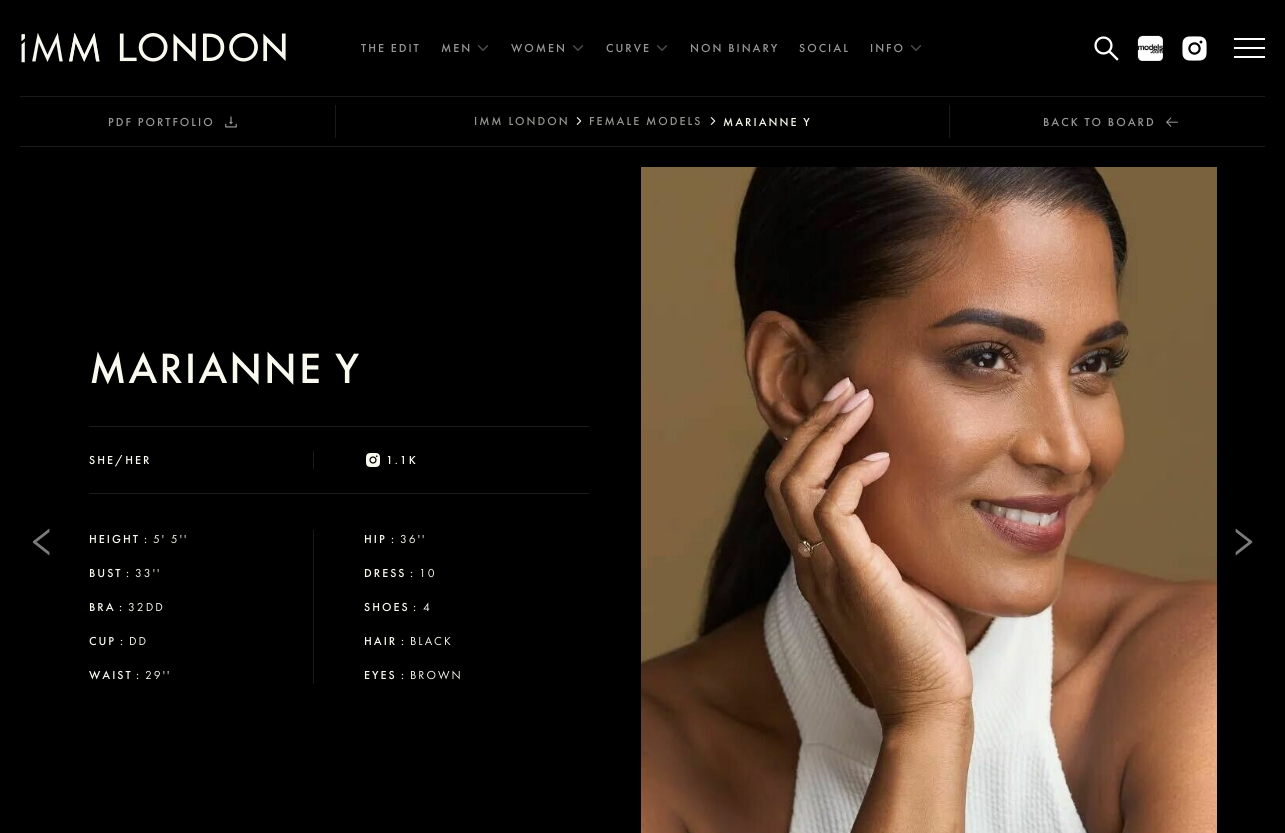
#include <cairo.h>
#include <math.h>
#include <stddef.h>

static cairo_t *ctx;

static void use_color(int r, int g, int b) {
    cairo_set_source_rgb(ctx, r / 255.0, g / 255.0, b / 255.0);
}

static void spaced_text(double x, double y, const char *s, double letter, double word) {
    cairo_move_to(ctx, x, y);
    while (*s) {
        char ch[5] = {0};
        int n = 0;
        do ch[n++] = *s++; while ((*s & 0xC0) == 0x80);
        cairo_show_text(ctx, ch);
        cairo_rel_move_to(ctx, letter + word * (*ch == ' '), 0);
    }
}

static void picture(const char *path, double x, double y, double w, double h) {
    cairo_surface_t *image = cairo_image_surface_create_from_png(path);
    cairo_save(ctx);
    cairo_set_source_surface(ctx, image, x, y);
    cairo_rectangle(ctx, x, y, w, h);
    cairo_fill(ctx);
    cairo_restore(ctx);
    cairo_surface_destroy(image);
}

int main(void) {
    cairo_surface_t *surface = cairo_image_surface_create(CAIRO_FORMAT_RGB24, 1285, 833);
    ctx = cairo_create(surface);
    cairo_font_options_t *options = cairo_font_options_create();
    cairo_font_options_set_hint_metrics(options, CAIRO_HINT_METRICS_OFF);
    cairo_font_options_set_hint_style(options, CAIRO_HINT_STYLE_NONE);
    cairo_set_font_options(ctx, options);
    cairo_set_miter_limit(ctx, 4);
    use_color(0, 0, 0);
    cairo_paint(ctx);
    use_color(26, 26, 26);
    cairo_rectangle(ctx, 20, 96, 1245, 1);
    cairo_fill(ctx);
    picture("img1.png", 21, 33, 265, 30);
    cairo_select_font_face(ctx, "Futura PT Medium", CAIRO_FONT_SLANT_NORMAL, CAIRO_FONT_WEIGHT_NORMAL);
    cairo_set_font_size(ctx, 12);
    use_color(153, 153, 153);
    spaced_text(361, 52, "THE EDIT", 2, 0);
    spaced_text(441, 52, "MEN", 2, 0);
    picture("img2.png", 477, 45, 12, 6);
    spaced_text(511, 52, "WOMEN", 2, 0);
    picture("img2.png", 572, 45, 12, 6);
    spaced_text(606, 52, "CURVE", 2, 0);
    picture("img2.png", 656, 45, 12, 6);
    spaced_text(690, 52, "NON BINARY", 2, 0);
    spaced_text(799, 52, "SOCIAL", 2, 0);
    spaced_text(870, 52, "INFO", 2, 0);
    picture("img2.png", 910, 45, 12, 6);
    picture("img3.png", 1094, 36, 25, 25);
    picture("img4.png", 1137, 35, 26, 26);
    picture("img5.png", 1182, 36, 25, 25);
    use_color(255, 255, 255);
    cairo_rectangle(ctx, 1234, 38, 31, 2);
    cairo_fill(ctx);
    cairo_rectangle(ctx, 1234, 47, 31, 2);
    cairo_fill(ctx);
    cairo_rectangle(ctx, 1234, 56, 31, 2);
    cairo_fill(ctx);
    use_color(26, 26, 26);
    cairo_rectangle(ctx, 20, 146, 1245, 1);
    cairo_fill(ctx);
    use_color(153, 153, 153);
    spaced_text(108, 126, "PDF PORTFOLIO", 2, 0);
    picture("img6.png", 225, 116, 12, 12);
    use_color(26, 26, 26);
    cairo_rectangle(ctx, 949, 105, 1, 33);
    cairo_fill(ctx);
    cairo_rectangle(ctx, 335, 105, 1, 33);
    cairo_fill(ctx);
    use_color(149, 149, 143);
    spaced_text(474, 125, "IMM LONDON", 2, 0);
    picture("img7.png", 576, 117, 6, 8);
    spaced_text(589, 125, "FEMALE MODELS", 2, 0);
    picture("img7.png", 710, 117, 6, 8);
    use_color(249, 249, 239);
    spaced_text(723, 126, "MARIANNE Y", 2, 0);
    use_color(153, 153, 153);
    spaced_text(1043, 126, "BACK TO BOARD", 2, 0);
    picture("img8.png", 1166, 117, 12, 10);
    use_color(26, 26, 26);
    cairo_rectangle(ctx, 89, 426, 500, 1);
    cairo_fill(ctx);
    cairo_set_font_size(ctx, 44);
    use_color(249, 249, 239);
    spaced_text(89, 383, "MARIANNE Y", 2, 0);
    use_color(26, 26, 26);
    cairo_rectangle(ctx, 89, 493, 500, 1);
    cairo_fill(ctx);
    cairo_rectangle(ctx, 313, 451, 1, 18);
    cairo_fill(ctx);
    cairo_set_font_size(ctx, 12);
    use_color(249, 249, 239);
    spaced_text(89, 464, "SHE/HER", 2, 0);
    picture("img9.png", 366, 453, 14, 14);
    spaced_text(386, 464, "1.1K", 2, 0);
    use_color(26, 26, 26);
    cairo_rectangle(ctx, 313, 530, 1, 154);
    cairo_fill(ctx);
    use_color(249, 249, 239);
    spaced_text(89, 543, "HEIGHT", 2, 0);
    spaced_text(144, 543, ":", 2, 0);
    cairo_select_font_face(ctx, "Futura PT", CAIRO_FONT_SLANT_NORMAL, CAIRO_FONT_WEIGHT_NORMAL);
    spaced_text(153, 543, "5' 5''", 2, 0);
    cairo_select_font_face(ctx, "Futura PT Medium", CAIRO_FONT_SLANT_NORMAL, CAIRO_FONT_WEIGHT_NORMAL);
    spaced_text(89, 577, "BUST", 2, 0);
    spaced_text(126, 577, ":", 2, 0);
    cairo_select_font_face(ctx, "Futura PT", CAIRO_FONT_SLANT_NORMAL, CAIRO_FONT_WEIGHT_NORMAL);
    spaced_text(135, 577, "33''", 2, 0);
    cairo_select_font_face(ctx, "Futura PT Medium", CAIRO_FONT_SLANT_NORMAL, CAIRO_FONT_WEIGHT_NORMAL);
    spaced_text(89, 611, "BRA", 2, 0);
    spaced_text(119, 611, ":", 2, 0);
    cairo_select_font_face(ctx, "Futura PT", CAIRO_FONT_SLANT_NORMAL, CAIRO_FONT_WEIGHT_NORMAL);
    spaced_text(128, 611, "32DD", 2, 0);
    cairo_select_font_face(ctx, "Futura PT Medium", CAIRO_FONT_SLANT_NORMAL, CAIRO_FONT_WEIGHT_NORMAL);
    spaced_text(89, 645, "CUP", 2, 0);
    spaced_text(120, 645, ":", 2, 0);
    cairo_select_font_face(ctx, "Futura PT", CAIRO_FONT_SLANT_NORMAL, CAIRO_FONT_WEIGHT_NORMAL);
    spaced_text(129, 645, "DD", 2, 0);
    cairo_select_font_face(ctx, "Futura PT Medium", CAIRO_FONT_SLANT_NORMAL, CAIRO_FONT_WEIGHT_NORMAL);
    spaced_text(89, 679, "WAIST", 2, 0);
    spaced_text(136, 679, ":", 2, 0);
    cairo_select_font_face(ctx, "Futura PT", CAIRO_FONT_SLANT_NORMAL, CAIRO_FONT_WEIGHT_NORMAL);
    spaced_text(145, 679, "29''", 2, 0);
    cairo_select_font_face(ctx, "Futura PT Medium", CAIRO_FONT_SLANT_NORMAL, CAIRO_FONT_WEIGHT_NORMAL);
    spaced_text(364, 543, "HIP", 2, 0);
    spaced_text(391, 543, ":", 2, 0);
    cairo_select_font_face(ctx, "Futura PT", CAIRO_FONT_SLANT_NORMAL, CAIRO_FONT_WEIGHT_NORMAL);
    spaced_text(400, 543, "36''", 2, 0);
    cairo_select_font_face(ctx, "Futura PT Medium", CAIRO_FONT_SLANT_NORMAL, CAIRO_FONT_WEIGHT_NORMAL);
    spaced_text(364, 577, "DRESS", 2, 0);
    spaced_text(410, 577, ":", 2, 0);
    cairo_select_font_face(ctx, "Futura PT", CAIRO_FONT_SLANT_NORMAL, CAIRO_FONT_WEIGHT_NORMAL);
    spaced_text(419, 577, "10", 2, 0);
    cairo_select_font_face(ctx, "Futura PT Medium", CAIRO_FONT_SLANT_NORMAL, CAIRO_FONT_WEIGHT_NORMAL);
    spaced_text(364, 611, "SHOES", 2, 0);
    spaced_text(413, 611, ":", 2, 0);
    cairo_select_font_face(ctx, "Futura PT", CAIRO_FONT_SLANT_NORMAL, CAIRO_FONT_WEIGHT_NORMAL);
    spaced_text(423, 611, "4", 2, 0);
    cairo_select_font_face(ctx, "Futura PT Medium", CAIRO_FONT_SLANT_NORMAL, CAIRO_FONT_WEIGHT_NORMAL);
    spaced_text(364, 645, "HAIR", 2, 0);
    spaced_text(401, 645, ":", 2, 0);
    cairo_select_font_face(ctx, "Futura PT", CAIRO_FONT_SLANT_NORMAL, CAIRO_FONT_WEIGHT_NORMAL);
    spaced_text(410, 645, "BLACK", 2, 0);
    cairo_select_font_face(ctx, "Futura PT Medium", CAIRO_FONT_SLANT_NORMAL, CAIRO_FONT_WEIGHT_NORMAL);
    spaced_text(364, 679, "EYES", 2, 0);
    spaced_text(401, 679, ":", 2, 0);
    cairo_select_font_face(ctx, "Futura PT", CAIRO_FONT_SLANT_NORMAL, CAIRO_FONT_WEIGHT_NORMAL);
    spaced_text(410, 679, "BROWN", 2, 0);
    picture("img10.png", 641, 167, 576, 666);
    picture("img11.png", 32, 528, 18, 28);
    picture("img12.png", 1235, 528, 18, 28);
    cairo_surface_write_to_png(surface, "result.png");
    cairo_font_options_destroy(options);
    cairo_destroy(ctx);
    cairo_surface_destroy(surface);
    return 0;
}
